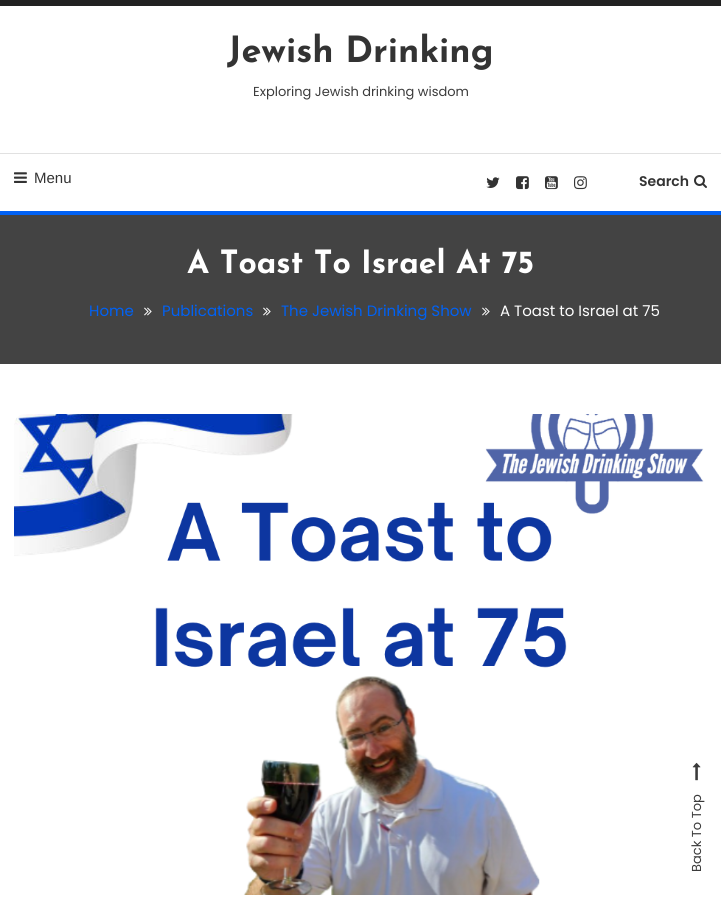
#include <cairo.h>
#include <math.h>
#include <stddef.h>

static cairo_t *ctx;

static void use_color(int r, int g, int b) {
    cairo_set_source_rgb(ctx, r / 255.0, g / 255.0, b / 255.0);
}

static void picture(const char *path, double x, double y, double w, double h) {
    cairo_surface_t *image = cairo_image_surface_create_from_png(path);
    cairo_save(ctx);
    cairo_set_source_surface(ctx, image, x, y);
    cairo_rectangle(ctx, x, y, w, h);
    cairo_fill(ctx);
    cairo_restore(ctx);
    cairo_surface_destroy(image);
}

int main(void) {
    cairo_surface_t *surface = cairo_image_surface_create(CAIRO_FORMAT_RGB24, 721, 900);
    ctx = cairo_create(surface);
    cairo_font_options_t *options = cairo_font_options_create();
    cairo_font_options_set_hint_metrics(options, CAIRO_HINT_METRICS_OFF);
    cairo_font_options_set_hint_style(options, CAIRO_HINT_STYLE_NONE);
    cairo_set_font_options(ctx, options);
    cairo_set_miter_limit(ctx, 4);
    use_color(255, 255, 255);
    cairo_paint(ctx);
    use_color(33, 33, 33);
    cairo_rectangle(ctx, 0, 0, 721, 6);
    cairo_fill(ctx);
    cairo_select_font_face(ctx, "Josefin Sans", CAIRO_FONT_SLANT_NORMAL, CAIRO_FONT_WEIGHT_BOLD);
    cairo_set_font_size(ctx, 36);
    use_color(51, 51, 51);
    cairo_move_to(ctx, 227, 62);
    cairo_show_text(ctx, "Jewish Drinking");
    cairo_select_font_face(ctx, "Poppins", CAIRO_FONT_SLANT_NORMAL, CAIRO_FONT_WEIGHT_NORMAL);
    cairo_set_font_size(ctx, 13);
    use_color(59, 59, 59);
    cairo_move_to(ctx, 253, 96);
    cairo_show_text(ctx, "Exploring Jewish drinking wisdom");
    use_color(225, 225, 225);
    cairo_rectangle(ctx, 0, 153, 721, 1);
    cairo_fill(ctx);
    picture("img1.png", 14, 172, 13, 11);
    cairo_select_font_face(ctx, "Liberation Sans", CAIRO_FONT_SLANT_NORMAL, CAIRO_FONT_WEIGHT_NORMAL);
    cairo_set_font_size(ctx, 15);
    use_color(51, 51, 51);
    cairo_move_to(ctx, 34, 183);
    cairo_show_text(ctx, "Menu");
    picture("img2.png", 486, 177, 14, 11);
    picture("img3.png", 516, 176, 13, 14);
    picture("img4.png", 545, 176, 13, 14);
    picture("img5.png", 574, 176, 13, 14);
    cairo_select_font_face(ctx, "Poppins SemiBold", CAIRO_FONT_SLANT_NORMAL, CAIRO_FONT_WEIGHT_NORMAL);
    cairo_set_font_size(ctx, 14);
    cairo_move_to(ctx, 639, 186);
    cairo_show_text(ctx, "Search");
    picture("img6.png", 694, 175, 13, 13);
    use_color(67, 67, 67);
    cairo_rectangle(ctx, 0, 215, 721, 149);
    cairo_fill(ctx);
    use_color(0, 97, 244);
    cairo_rectangle(ctx, 0, 211, 721, 4);
    cairo_fill(ctx);
    cairo_select_font_face(ctx, "Josefin Sans", CAIRO_FONT_SLANT_NORMAL, CAIRO_FONT_WEIGHT_BOLD);
    cairo_set_font_size(ctx, 32);
    use_color(255, 255, 255);
    cairo_move_to(ctx, 187, 273);
    cairo_show_text(ctx, "A Toast To Israel At 75");
    cairo_select_font_face(ctx, "Poppins", CAIRO_FONT_SLANT_NORMAL, CAIRO_FONT_WEIGHT_NORMAL);
    cairo_set_font_size(ctx, 15);
    use_color(0, 97, 244);
    cairo_move_to(ctx, 89, 316);
    cairo_show_text(ctx, "Home");
    picture("img7.png", 144, 307, 8, 9);
    cairo_move_to(ctx, 162, 316);
    cairo_show_text(ctx, "Publications");
    picture("img7.png", 263, 307, 8, 9);
    cairo_move_to(ctx, 281, 316);
    cairo_show_text(ctx, "The Jewish Drinking Show");
    picture("img7.png", 482, 307, 8, 9);
    use_color(255, 255, 255);
    cairo_move_to(ctx, 500, 316);
    cairo_show_text(ctx, "A Toast to Israel at 75");
    picture("img8.png", 14, 414, 690, 481);
    picture("img9.png", 692, 762, 9, 19);
    cairo_set_font_size(ctx, 13);
    use_color(59, 59, 59);
    cairo_save(ctx);
    cairo_translate(ctx, 701, 872);
    cairo_rotate(ctx, -90 * M_PI / 180);
    cairo_move_to(ctx, 0, 0);
    cairo_show_text(ctx, "Back To Top");
    cairo_restore(ctx);
    cairo_surface_write_to_png(surface, "result.png");
    cairo_font_options_destroy(options);
    cairo_destroy(ctx);
    cairo_surface_destroy(surface);
    return 0;
}
